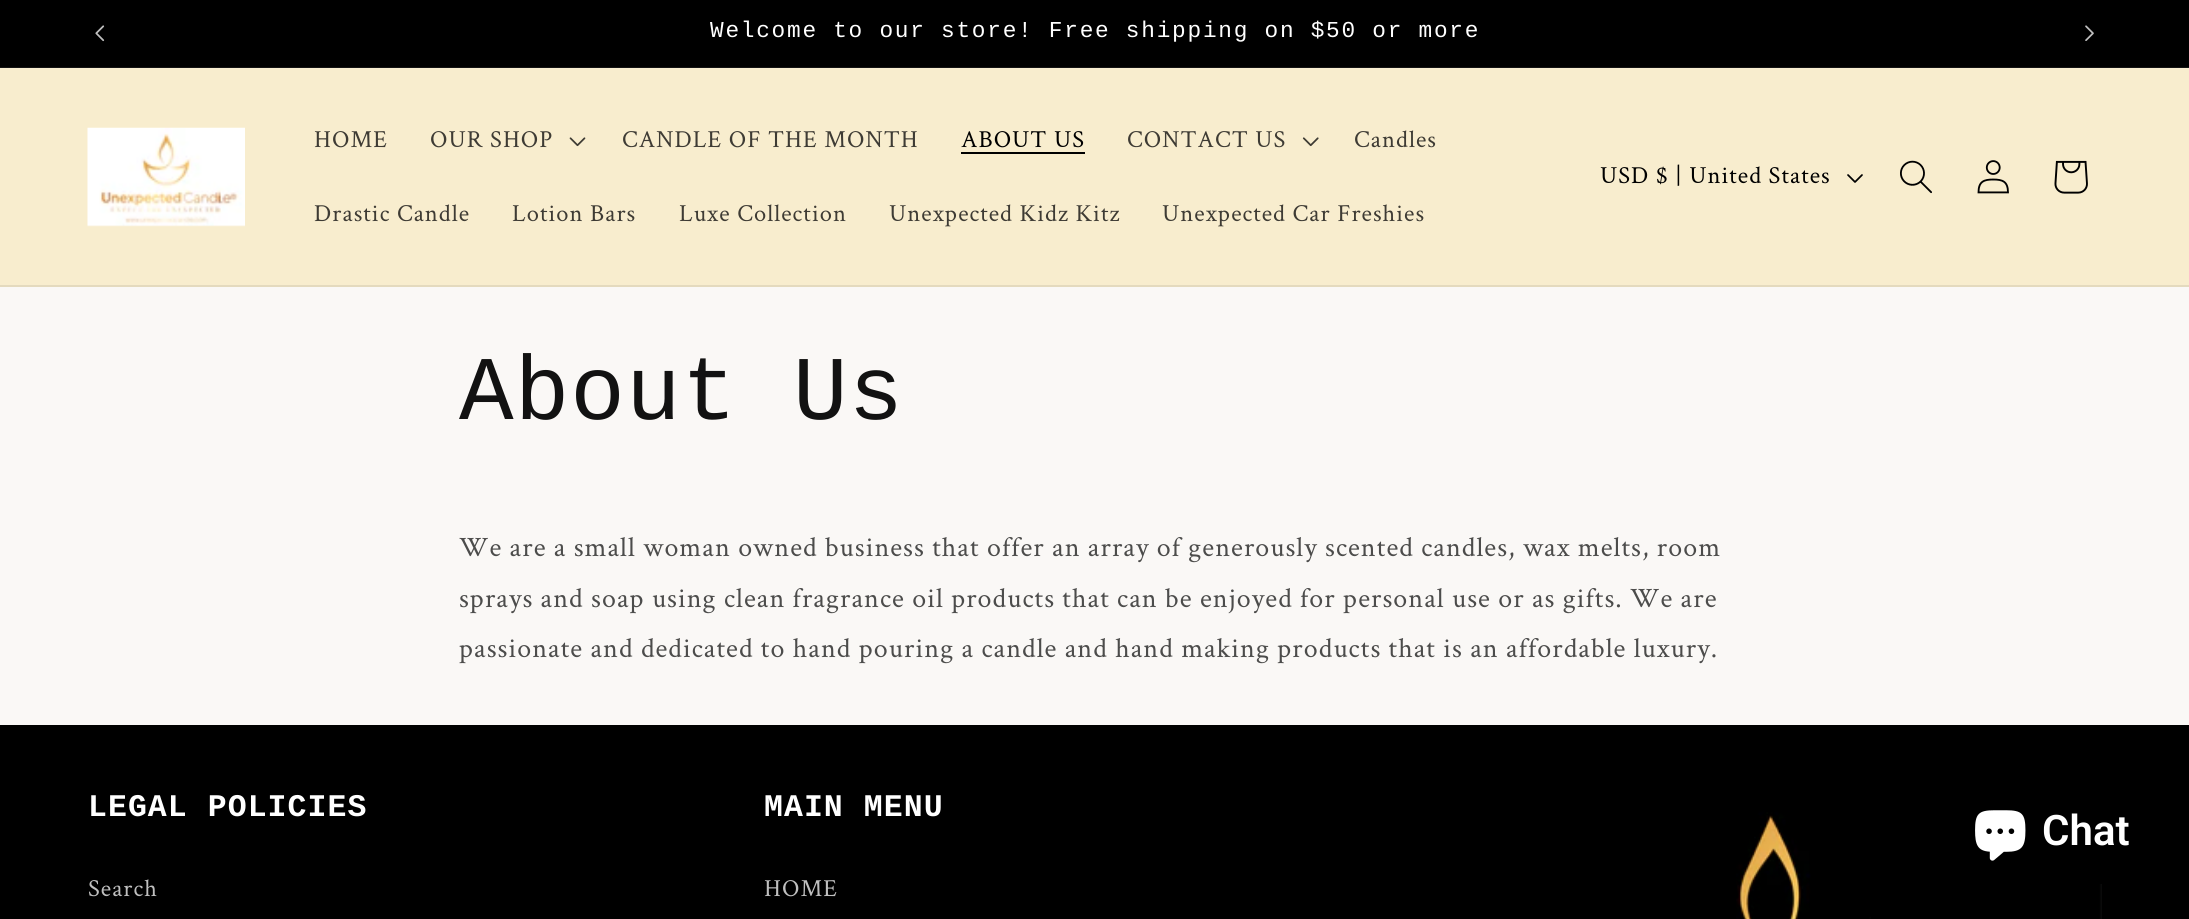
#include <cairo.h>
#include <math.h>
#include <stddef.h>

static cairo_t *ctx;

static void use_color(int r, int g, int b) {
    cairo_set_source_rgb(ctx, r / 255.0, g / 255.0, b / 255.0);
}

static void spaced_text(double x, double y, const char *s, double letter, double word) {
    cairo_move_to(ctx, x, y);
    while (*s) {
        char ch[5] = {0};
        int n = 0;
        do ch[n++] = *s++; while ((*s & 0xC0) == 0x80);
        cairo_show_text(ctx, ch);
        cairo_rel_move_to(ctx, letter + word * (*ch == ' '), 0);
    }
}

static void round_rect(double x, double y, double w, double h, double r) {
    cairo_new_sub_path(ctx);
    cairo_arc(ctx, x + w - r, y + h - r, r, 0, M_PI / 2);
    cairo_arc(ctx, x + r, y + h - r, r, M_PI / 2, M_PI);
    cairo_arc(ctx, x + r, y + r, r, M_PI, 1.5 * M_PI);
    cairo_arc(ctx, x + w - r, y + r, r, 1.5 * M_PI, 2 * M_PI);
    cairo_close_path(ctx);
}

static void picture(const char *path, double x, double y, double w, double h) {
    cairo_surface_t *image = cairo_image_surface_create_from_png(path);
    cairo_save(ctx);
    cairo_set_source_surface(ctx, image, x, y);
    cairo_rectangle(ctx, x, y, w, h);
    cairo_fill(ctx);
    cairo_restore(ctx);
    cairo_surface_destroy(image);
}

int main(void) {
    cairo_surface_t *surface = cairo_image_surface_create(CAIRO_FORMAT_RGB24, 2189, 919);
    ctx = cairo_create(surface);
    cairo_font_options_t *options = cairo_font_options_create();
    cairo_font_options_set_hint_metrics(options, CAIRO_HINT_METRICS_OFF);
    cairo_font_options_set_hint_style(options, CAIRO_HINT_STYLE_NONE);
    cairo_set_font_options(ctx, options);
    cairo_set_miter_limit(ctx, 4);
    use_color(250, 248, 246);
    cairo_paint(ctx);
    use_color(0, 0, 0);
    cairo_rectangle(ctx, 0, 0, 2189, 67);
    cairo_fill(ctx);
    use_color(20, 20, 20);
    cairo_rectangle(ctx, 0, 67, 2189, 1);
    cairo_fill(ctx);
    picture("img1.png", 95, 25, 10, 17);
    cairo_select_font_face(ctx, "Liberation Mono", CAIRO_FONT_SLANT_NORMAL, CAIRO_FONT_WEIGHT_NORMAL);
    cairo_set_font_size(ctx, 22.75);
    use_color(255, 255, 255);
    spaced_text(710, 37, "Welcome to our store! Free shipping on $50 or more", 1.75, 0);
    picture("img2.png", 2085, 25, 9, 16);
    use_color(248, 237, 206);
    cairo_rectangle(ctx, 0, 69, 2189, 216);
    cairo_fill(ctx);
    use_color(249, 238, 210);
    cairo_rectangle(ctx, 0, 68, 2189, 1);
    cairo_fill(ctx);
    use_color(228, 218, 190);
    cairo_rectangle(ctx, 0, 285, 2189, 2);
    cairo_fill(ctx);
    picture("img3.png", 87, 127, 158, 100);
    cairo_select_font_face(ctx, "Crimson Text", CAIRO_FONT_SLANT_NORMAL, CAIRO_FONT_WEIGHT_NORMAL);
    cairo_set_font_size(ctx, 24.5);
    use_color(62, 59, 52);
    spaced_text(314, 147, "HOME", 1.05, 0);
    spaced_text(430, 147, "OUR SHOP", 1.05, 0);
    picture("img4.png", 569, 137, 17, 10);
    spaced_text(622, 147, "CANDLE OF THE MONTH", 1.05, 0);
    use_color(0, 0, 0);
    spaced_text(961, 147, "ABOUT US", 1.05, 0);
    cairo_rectangle(ctx, 961, 152, 124, 2);
    cairo_fill(ctx);
    use_color(62, 59, 52);
    spaced_text(1127, 147, "CONTACT US", 1.05, 0);
    picture("img5.png", 1302, 137, 17, 10);
    spaced_text(1354, 147, "Candles", 1.05, 0);
    spaced_text(314, 221, "Drastic Candle", 1.05, 0);
    spaced_text(512, 221, "Lotion Bars", 1.05, 0);
    spaced_text(679, 221, "Luxe Collection", 1.05, 0);
    spaced_text(889, 221, "Unexpected Kidz Kitz", 1.05, 0);
    spaced_text(1162, 221, "Unexpected Car Freshies", 1.05, 0);
    use_color(0, 0, 0);
    spaced_text(1600, 183, "USD $ | United States", 1.05, 0);
    picture("img6.png", 1847, 174, 16, 9);
    picture("img7.png", 1900, 160, 32, 34);
    picture("img8.png", 1977, 160, 32, 34);
    picture("img9.png", 2054, 160, 34, 34);
    cairo_select_font_face(ctx, "Liberation Mono", CAIRO_FONT_SLANT_NORMAL, CAIRO_FONT_WEIGHT_NORMAL);
    cairo_set_font_size(ctx, 91);
    use_color(18, 18, 18);
    spaced_text(459, 419, "About Us", 1.05, 0);
    cairo_select_font_face(ctx, "Crimson Text", CAIRO_FONT_SLANT_NORMAL, CAIRO_FONT_WEIGHT_NORMAL);
    cairo_set_font_size(ctx, 28);
    use_color(76, 76, 75);
    spaced_text(459, 556, "We are a small woman owned business that offer an array of generously scented candles, wax melts, room", 1.05, 0);
    spaced_text(459, 607, "sprays and soap using clean fragrance oil products that can be enjoyed for personal use or as gifts. We are", 1.05, 0);
    spaced_text(459, 657, "passionate and dedicated to hand pouring a candle and hand making products that is an affordable luxury.", 1.05, 0);
    use_color(0, 0, 0);
    cairo_rectangle(ctx, 0, 725, 2189, 194);
    cairo_fill(ctx);
    cairo_select_font_face(ctx, "Liberation Mono", CAIRO_FONT_SLANT_NORMAL, CAIRO_FONT_WEIGHT_BOLD);
    cairo_set_font_size(ctx, 31.5);
    use_color(255, 255, 255);
    spaced_text(88, 816, "LEGAL POLICIES", 1.05, 0);
    cairo_select_font_face(ctx, "Crimson Text", CAIRO_FONT_SLANT_NORMAL, CAIRO_FONT_WEIGHT_NORMAL);
    cairo_set_font_size(ctx, 24.5);
    use_color(191, 191, 191);
    spaced_text(88, 896, "Search", 1.05, 0);
    cairo_select_font_face(ctx, "Liberation Mono", CAIRO_FONT_SLANT_NORMAL, CAIRO_FONT_WEIGHT_BOLD);
    cairo_set_font_size(ctx, 31.5);
    use_color(255, 255, 255);
    spaced_text(764, 816, "MAIN MENU", 1.05, 0);
    cairo_select_font_face(ctx, "Crimson Text", CAIRO_FONT_SLANT_NORMAL, CAIRO_FONT_WEIGHT_NORMAL);
    cairo_set_font_size(ctx, 24.5);
    use_color(191, 191, 191);
    spaced_text(764, 896, "HOME", 1.05, 0);
    picture("img10.png", 1736, 788, 366, 131);
    use_color(0, 0, 0);
    round_rect(1953, 779, 198, 105, 28);
    cairo_fill(ctx);
    picture("img11.png", 1975, 810, 51, 51);
    cairo_select_font_face(ctx, "Roboto SemiBold", CAIRO_FONT_SLANT_NORMAL, CAIRO_FONT_WEIGHT_NORMAL);
    cairo_set_font_size(ctx, 42);
    use_color(255, 255, 255);
    cairo_move_to(ctx, 2042, 845);
    cairo_show_text(ctx, "Chat");
    cairo_surface_write_to_png(surface, "result.png");
    cairo_font_options_destroy(options);
    cairo_destroy(ctx);
    cairo_surface_destroy(surface);
    return 0;
}
